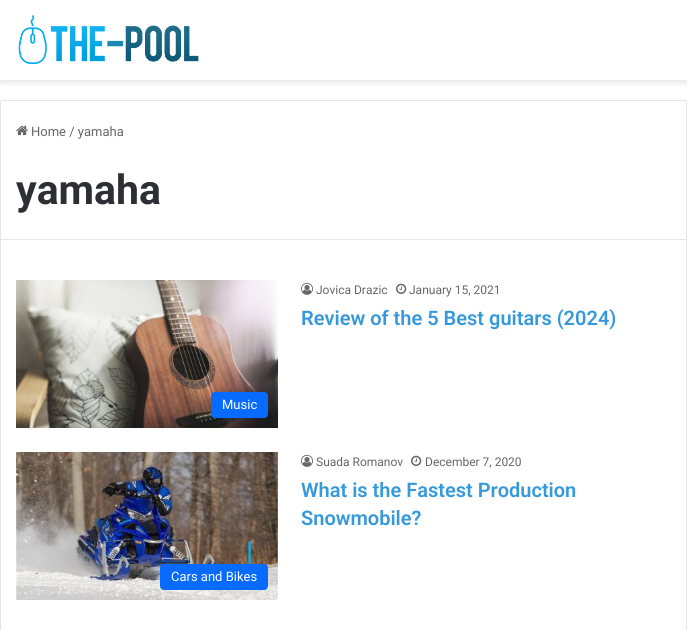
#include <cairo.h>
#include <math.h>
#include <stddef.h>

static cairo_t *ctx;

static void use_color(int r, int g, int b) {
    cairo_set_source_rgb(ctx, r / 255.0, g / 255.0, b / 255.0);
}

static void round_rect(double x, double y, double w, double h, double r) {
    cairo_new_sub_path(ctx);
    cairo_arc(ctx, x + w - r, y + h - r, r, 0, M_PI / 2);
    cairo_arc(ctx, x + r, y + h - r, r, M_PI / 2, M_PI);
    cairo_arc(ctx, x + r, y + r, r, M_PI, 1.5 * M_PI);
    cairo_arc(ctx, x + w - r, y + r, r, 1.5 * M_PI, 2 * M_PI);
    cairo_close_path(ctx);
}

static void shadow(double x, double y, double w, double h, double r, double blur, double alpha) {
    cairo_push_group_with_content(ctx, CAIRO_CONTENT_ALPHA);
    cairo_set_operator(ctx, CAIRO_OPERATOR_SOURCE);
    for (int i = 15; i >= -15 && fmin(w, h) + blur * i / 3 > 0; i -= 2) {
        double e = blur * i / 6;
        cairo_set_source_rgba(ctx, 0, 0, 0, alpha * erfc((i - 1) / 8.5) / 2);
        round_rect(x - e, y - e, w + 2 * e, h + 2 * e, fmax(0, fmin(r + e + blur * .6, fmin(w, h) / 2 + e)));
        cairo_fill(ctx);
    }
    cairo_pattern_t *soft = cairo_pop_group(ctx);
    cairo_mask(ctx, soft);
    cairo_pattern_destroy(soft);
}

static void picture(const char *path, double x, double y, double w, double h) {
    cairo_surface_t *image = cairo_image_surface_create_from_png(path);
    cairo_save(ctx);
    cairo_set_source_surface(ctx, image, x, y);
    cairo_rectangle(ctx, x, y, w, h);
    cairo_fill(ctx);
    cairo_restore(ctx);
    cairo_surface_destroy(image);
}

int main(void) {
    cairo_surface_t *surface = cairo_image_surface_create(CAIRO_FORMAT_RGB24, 687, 630);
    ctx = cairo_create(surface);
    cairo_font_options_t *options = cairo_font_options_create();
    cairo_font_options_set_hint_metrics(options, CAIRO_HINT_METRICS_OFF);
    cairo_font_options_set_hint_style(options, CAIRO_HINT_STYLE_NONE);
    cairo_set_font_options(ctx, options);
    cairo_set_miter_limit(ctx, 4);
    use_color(255, 255, 255);
    cairo_paint(ctx);
    cairo_save(ctx);
    cairo_rectangle(ctx, 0, 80, 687, 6);
    cairo_clip(ctx);
    use_color(0, 0, 0);
    shadow(0, 3, 687, 80, 0, 3.5, 0.1);
    cairo_restore(ctx);
    picture("img1.png", 18, 15, 181, 49);
    cairo_new_path(ctx);
    cairo_move_to(ctx, 2, 100.5);
    cairo_line_to(ctx, 685, 100.5);
    cairo_curve_to(ctx, 686, 100.5, 686.5, 101, 686.5, 102);
    cairo_line_to(ctx, 686.5, 239.5);
    cairo_line_to(ctx, 0.5, 239.5);
    cairo_line_to(ctx, 0.5, 102);
    cairo_curve_to(ctx, 0.5, 101, 1, 100.5, 2, 100.5);
    cairo_close_path(ctx);
    use_color(230, 230, 230);
    cairo_set_line_width(ctx, 1);
    cairo_stroke(ctx);
    picture("img2.png", 16, 125, 12, 11);
    cairo_select_font_face(ctx, "Roboto", CAIRO_FONT_SLANT_NORMAL, CAIRO_FONT_WEIGHT_NORMAL);
    cairo_set_font_size(ctx, 13);
    use_color(102, 102, 102);
    cairo_move_to(ctx, 31, 136);
    cairo_show_text(ctx, "Home / yamaha");
    cairo_select_font_face(ctx, "Roboto", CAIRO_FONT_SLANT_NORMAL, CAIRO_FONT_WEIGHT_BOLD);
    cairo_set_font_size(ctx, 41);
    use_color(44, 47, 52);
    cairo_move_to(ctx, 16, 204);
    cairo_show_text(ctx, "yamaha");
    use_color(230, 230, 230);
    cairo_rectangle(ctx, 686, 240, 1, 390);
    cairo_fill(ctx);
    cairo_rectangle(ctx, 0, 240, 1, 390);
    cairo_fill(ctx);
    picture("img3.png", 301, 282, 12, 13);
    cairo_select_font_face(ctx, "Roboto", CAIRO_FONT_SLANT_NORMAL, CAIRO_FONT_WEIGHT_NORMAL);
    cairo_set_font_size(ctx, 12);
    use_color(102, 102, 102);
    cairo_move_to(ctx, 316, 294);
    cairo_show_text(ctx, "Jovica Drazic");
    picture("img4.png", 396, 283, 11, 11);
    cairo_move_to(ctx, 409, 294);
    cairo_show_text(ctx, "January 15, 2021");
    cairo_select_font_face(ctx, "Roboto SemiBold", CAIRO_FONT_SLANT_NORMAL, CAIRO_FONT_WEIGHT_NORMAL);
    cairo_set_font_size(ctx, 20);
    use_color(54, 153, 219);
    cairo_move_to(ctx, 301, 325);
    cairo_show_text(ctx, "Review of the 5 Best guitars (2024)");
    picture("img5.png", 16, 280, 262, 148);
    use_color(8, 107, 255);
    round_rect(211, 392, 57, 26, 4);
    cairo_fill(ctx);
    cairo_select_font_face(ctx, "Roboto", CAIRO_FONT_SLANT_NORMAL, CAIRO_FONT_WEIGHT_NORMAL);
    cairo_set_font_size(ctx, 13);
    use_color(255, 255, 255);
    cairo_move_to(ctx, 222, 409);
    cairo_show_text(ctx, "Music");
    picture("img3.png", 301, 454, 12, 13);
    cairo_set_font_size(ctx, 12);
    use_color(102, 102, 102);
    cairo_move_to(ctx, 316, 466);
    cairo_show_text(ctx, "Suada Romanov");
    picture("img4.png", 411, 455, 11, 11);
    cairo_move_to(ctx, 425, 466);
    cairo_show_text(ctx, "December 7, 2020");
    cairo_select_font_face(ctx, "Roboto SemiBold", CAIRO_FONT_SLANT_NORMAL, CAIRO_FONT_WEIGHT_NORMAL);
    cairo_set_font_size(ctx, 20);
    use_color(54, 153, 219);
    cairo_move_to(ctx, 301, 497);
    cairo_show_text(ctx, "What is the Fastest Production");
    cairo_move_to(ctx, 301, 525);
    cairo_show_text(ctx, "Snowmobile?");
    picture("img6.png", 16, 452, 262, 148);
    use_color(8, 107, 255);
    round_rect(160, 564, 108, 26, 4);
    cairo_fill(ctx);
    cairo_select_font_face(ctx, "Roboto", CAIRO_FONT_SLANT_NORMAL, CAIRO_FONT_WEIGHT_NORMAL);
    cairo_set_font_size(ctx, 13);
    use_color(255, 255, 255);
    cairo_move_to(ctx, 171, 581);
    cairo_show_text(ctx, "Cars and Bikes");
    cairo_surface_write_to_png(surface, "result.png");
    cairo_font_options_destroy(options);
    cairo_destroy(ctx);
    cairo_surface_destroy(surface);
    return 0;
}
